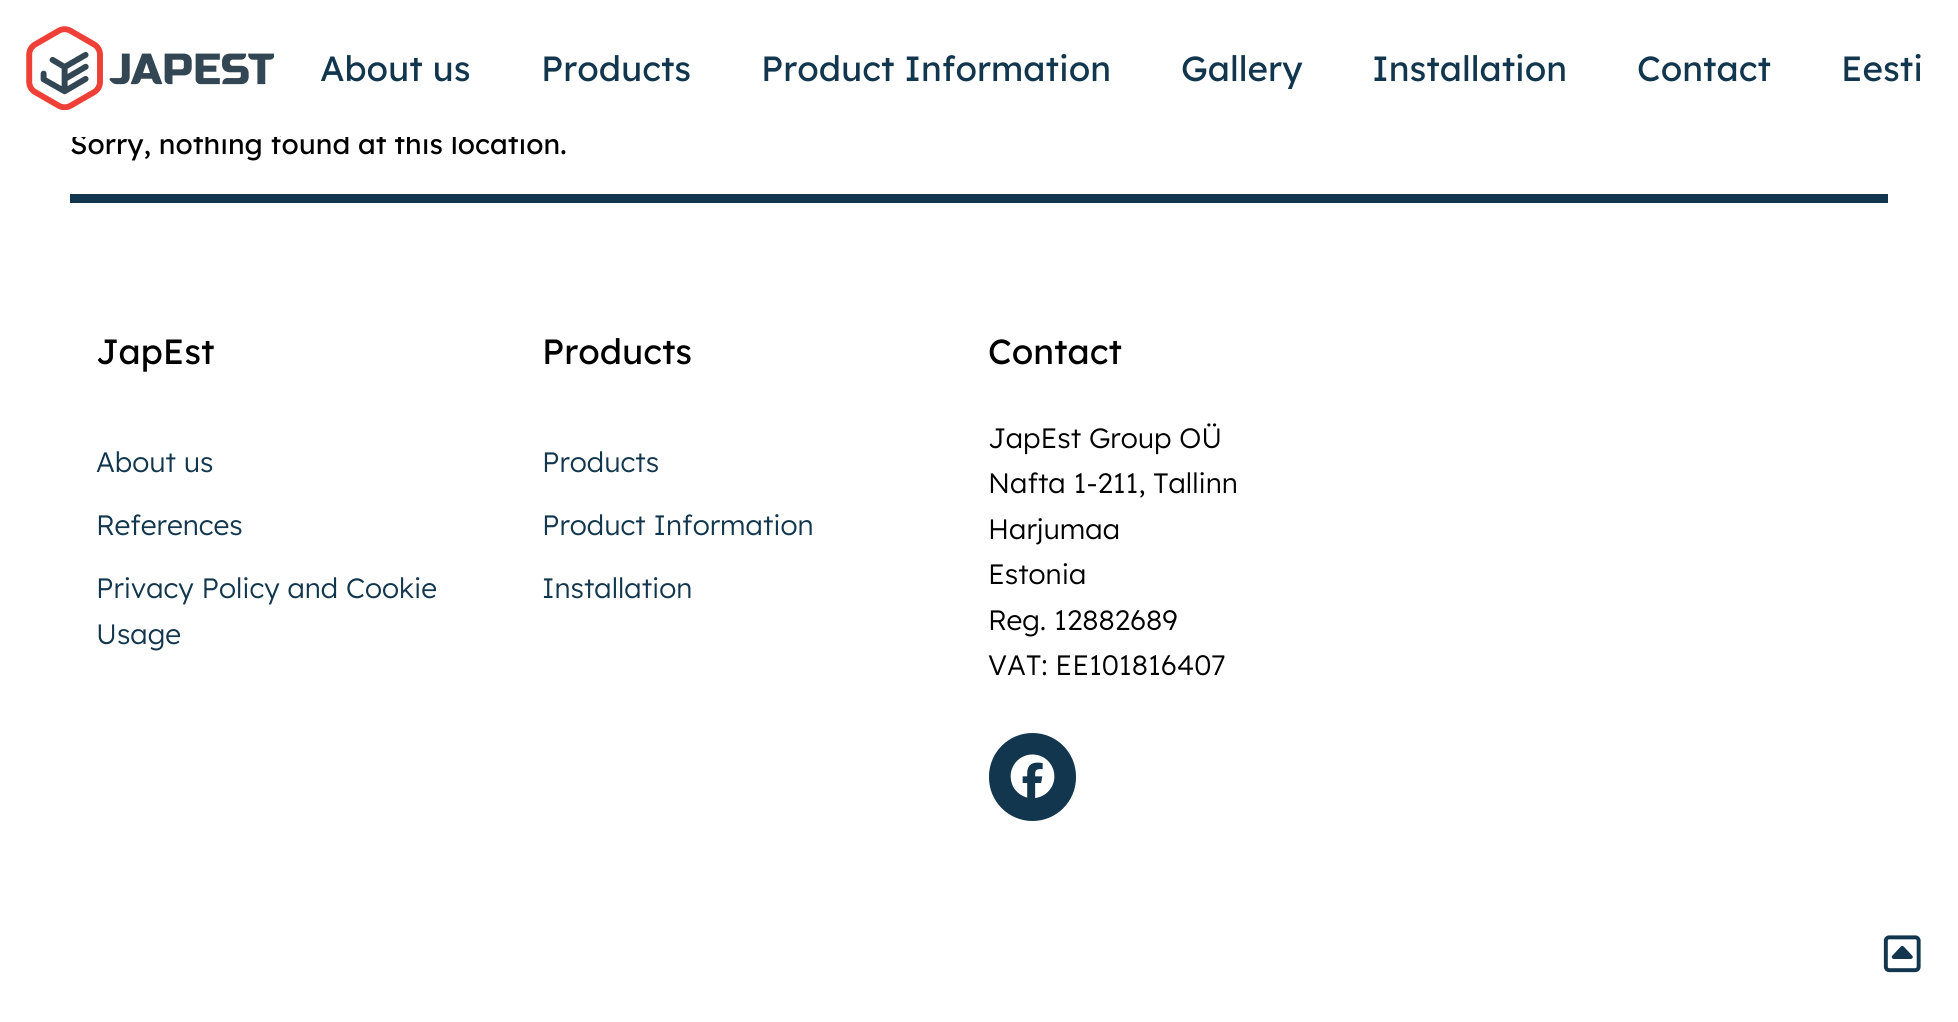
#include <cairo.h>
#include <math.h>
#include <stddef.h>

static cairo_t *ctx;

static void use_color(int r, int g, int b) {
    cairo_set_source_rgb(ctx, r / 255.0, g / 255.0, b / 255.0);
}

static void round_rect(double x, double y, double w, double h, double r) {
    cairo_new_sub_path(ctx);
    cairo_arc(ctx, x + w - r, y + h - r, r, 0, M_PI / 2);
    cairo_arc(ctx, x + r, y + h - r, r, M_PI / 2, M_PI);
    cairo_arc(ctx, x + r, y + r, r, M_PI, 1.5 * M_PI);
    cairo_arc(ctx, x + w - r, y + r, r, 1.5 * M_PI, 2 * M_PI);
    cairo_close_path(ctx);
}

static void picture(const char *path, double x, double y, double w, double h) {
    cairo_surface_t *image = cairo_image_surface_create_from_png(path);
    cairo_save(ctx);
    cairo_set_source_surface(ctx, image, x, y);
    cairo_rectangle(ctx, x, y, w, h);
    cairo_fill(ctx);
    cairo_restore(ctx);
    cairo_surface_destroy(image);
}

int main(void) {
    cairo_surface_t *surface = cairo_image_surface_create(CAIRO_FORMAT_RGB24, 1958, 1022);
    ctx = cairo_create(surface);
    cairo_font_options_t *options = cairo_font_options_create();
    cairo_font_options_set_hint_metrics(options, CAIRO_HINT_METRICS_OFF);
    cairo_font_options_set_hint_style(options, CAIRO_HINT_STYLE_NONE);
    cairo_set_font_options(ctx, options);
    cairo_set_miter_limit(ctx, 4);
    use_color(255, 255, 255);
    cairo_paint(ctx);
    cairo_select_font_face(ctx, "Lexend", CAIRO_FONT_SLANT_NORMAL, CAIRO_FONT_WEIGHT_NORMAL);
    cairo_set_font_size(ctx, 28);
    use_color(0, 0, 0);
    cairo_move_to(ctx, 70, 154);
    cairo_show_text(ctx, "Sorry, nothing found at this location.");
    use_color(255, 255, 255);
    cairo_new_path(ctx);
    cairo_move_to(ctx, 0, 0);
    cairo_line_to(ctx, 301, 0);
    cairo_line_to(ctx, 301, 111);
    cairo_curve_to(ctx, 301, 125.5, 289.5, 137, 275, 137);
    cairo_line_to(ctx, 0, 137);
    cairo_close_path(ctx);
    cairo_fill(ctx);
    picture("img1.png", 26, 26, 248, 84);
    cairo_rectangle(ctx, 345, 132, 180, 5);
    cairo_fill(ctx);
    cairo_set_font_size(ctx, 35);
    use_color(18, 54, 77);
    cairo_move_to(ctx, 320, 81);
    cairo_show_text(ctx, "About us");
    cairo_move_to(ctx, 541, 81);
    cairo_show_text(ctx, "Products");
    cairo_move_to(ctx, 761, 81);
    cairo_show_text(ctx, "Product Information");
    cairo_move_to(ctx, 1181, 81);
    cairo_show_text(ctx, "Gallery");
    cairo_move_to(ctx, 1372, 81);
    cairo_show_text(ctx, "Installation");
    cairo_move_to(ctx, 1637, 81);
    cairo_show_text(ctx, "Contact");
    cairo_move_to(ctx, 1841, 81);
    cairo_show_text(ctx, "Eesti");
    cairo_rectangle(ctx, 70, 194, 1818, 9);
    cairo_fill(ctx);
    use_color(0, 0, 0);
    cairo_move_to(ctx, 96, 364);
    cairo_show_text(ctx, "JapEst");
    cairo_select_font_face(ctx, "Lexend Light", CAIRO_FONT_SLANT_NORMAL, CAIRO_FONT_WEIGHT_NORMAL);
    cairo_set_font_size(ctx, 28);
    use_color(18, 54, 77);
    cairo_move_to(ctx, 96, 472);
    cairo_show_text(ctx, "About us");
    cairo_move_to(ctx, 96, 535);
    cairo_show_text(ctx, "References");
    cairo_move_to(ctx, 96, 598);
    cairo_show_text(ctx, "Privacy Policy and Cookie");
    cairo_move_to(ctx, 96, 644);
    cairo_show_text(ctx, "Usage");
    cairo_select_font_face(ctx, "Lexend", CAIRO_FONT_SLANT_NORMAL, CAIRO_FONT_WEIGHT_NORMAL);
    cairo_set_font_size(ctx, 35);
    use_color(0, 0, 0);
    cairo_move_to(ctx, 542, 364);
    cairo_show_text(ctx, "Products");
    cairo_select_font_face(ctx, "Lexend Light", CAIRO_FONT_SLANT_NORMAL, CAIRO_FONT_WEIGHT_NORMAL);
    cairo_set_font_size(ctx, 28);
    use_color(18, 54, 77);
    cairo_move_to(ctx, 542, 472);
    cairo_show_text(ctx, "Products");
    cairo_move_to(ctx, 542, 535);
    cairo_show_text(ctx, "Product Information");
    cairo_move_to(ctx, 542, 598);
    cairo_show_text(ctx, "Installation");
    cairo_select_font_face(ctx, "Lexend", CAIRO_FONT_SLANT_NORMAL, CAIRO_FONT_WEIGHT_NORMAL);
    cairo_set_font_size(ctx, 35);
    use_color(0, 0, 0);
    cairo_move_to(ctx, 988, 364);
    cairo_show_text(ctx, "Contact");
    cairo_select_font_face(ctx, "Lexend Light", CAIRO_FONT_SLANT_NORMAL, CAIRO_FONT_WEIGHT_NORMAL);
    cairo_set_font_size(ctx, 28);
    cairo_move_to(ctx, 988, 448);
    cairo_show_text(ctx, "JapEst Group OÜ");
    cairo_move_to(ctx, 988, 493);
    cairo_show_text(ctx, "Nafta 1-211, Tallinn");
    cairo_move_to(ctx, 988, 539);
    cairo_show_text(ctx, "Harjumaa");
    cairo_move_to(ctx, 988, 584);
    cairo_show_text(ctx, "Estonia");
    cairo_move_to(ctx, 988, 630);
    cairo_show_text(ctx, "Reg. 12882689");
    cairo_move_to(ctx, 988, 675);
    cairo_show_text(ctx, "VAT: EE101816407");
    use_color(18, 54, 77);
    round_rect(989, 733, 87, 88, 43.5);
    cairo_fill(ctx);
    picture("img2.png", 1010, 754, 45, 44);
    picture("img3.png", 1883, 935, 38, 38);
    cairo_surface_write_to_png(surface, "result.png");
    cairo_font_options_destroy(options);
    cairo_destroy(ctx);
    cairo_surface_destroy(surface);
    return 0;
}
